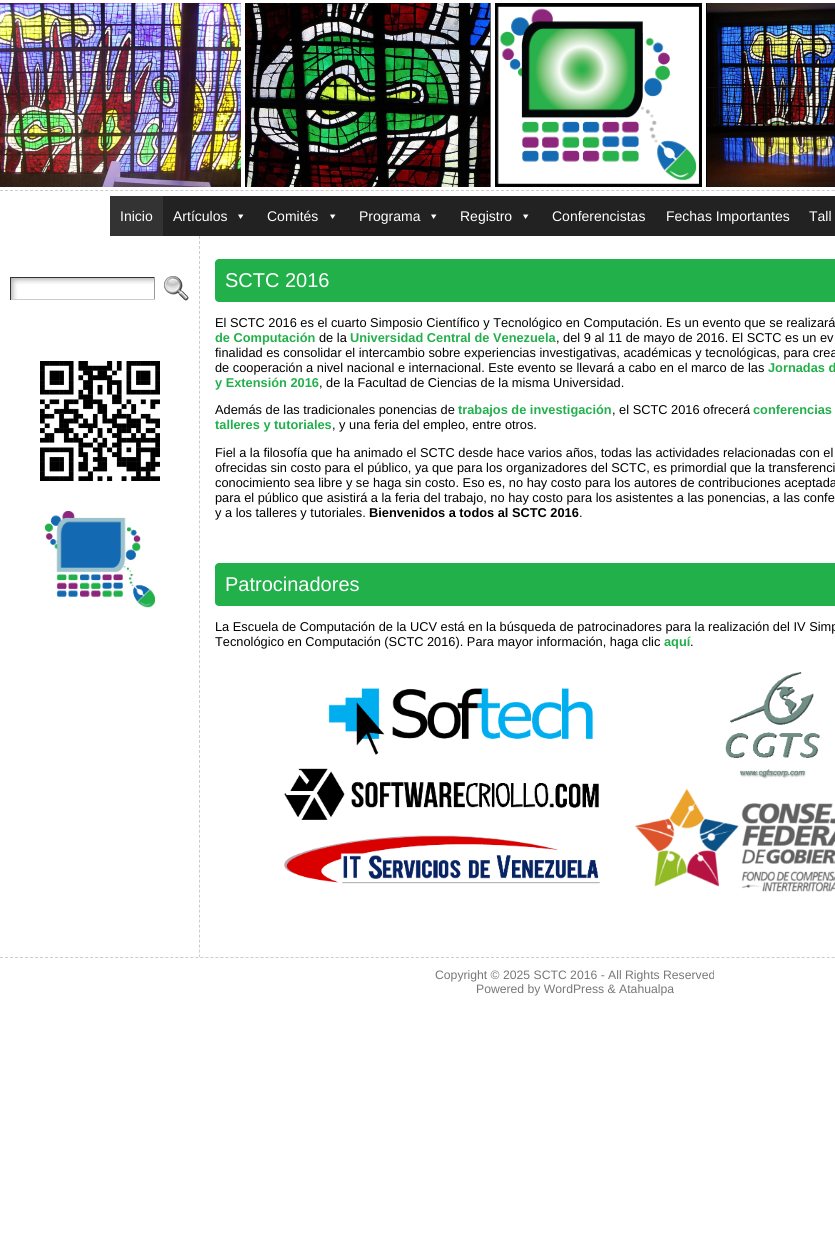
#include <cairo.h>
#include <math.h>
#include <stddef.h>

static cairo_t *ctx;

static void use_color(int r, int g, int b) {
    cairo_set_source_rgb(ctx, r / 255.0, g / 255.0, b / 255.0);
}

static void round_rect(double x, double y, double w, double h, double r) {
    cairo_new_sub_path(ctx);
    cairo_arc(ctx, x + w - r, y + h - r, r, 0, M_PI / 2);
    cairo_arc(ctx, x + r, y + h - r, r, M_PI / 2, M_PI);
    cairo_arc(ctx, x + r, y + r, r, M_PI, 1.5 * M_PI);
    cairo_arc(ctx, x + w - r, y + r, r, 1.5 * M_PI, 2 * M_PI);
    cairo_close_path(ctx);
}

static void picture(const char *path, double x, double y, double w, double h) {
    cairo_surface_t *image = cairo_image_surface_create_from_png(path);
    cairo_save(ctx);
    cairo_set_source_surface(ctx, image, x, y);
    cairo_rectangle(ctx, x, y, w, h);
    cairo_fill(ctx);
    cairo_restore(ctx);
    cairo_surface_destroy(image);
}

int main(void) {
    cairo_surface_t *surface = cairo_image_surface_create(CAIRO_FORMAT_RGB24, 835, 1257);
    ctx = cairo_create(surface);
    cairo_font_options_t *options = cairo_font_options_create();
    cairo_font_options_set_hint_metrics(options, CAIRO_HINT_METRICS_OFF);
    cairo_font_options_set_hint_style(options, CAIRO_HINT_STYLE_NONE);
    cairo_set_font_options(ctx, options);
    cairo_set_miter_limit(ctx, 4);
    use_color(255, 255, 255);
    cairo_paint(ctx);
    picture("img1.png", 0, 3, 835, 184);
    cairo_new_path(ctx);
    cairo_move_to(ctx, 0, 190.5);
    cairo_line_to(ctx, 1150, 190.5);
    use_color(204, 204, 204);
    cairo_set_line_width(ctx, 1);
    cairo_set_dash(ctx, (double[]){3, 2.01}, 2, 0);
    cairo_stroke(ctx);
    use_color(34, 34, 34);
    cairo_rectangle(ctx, 163, 196, 672, 40);
    cairo_fill(ctx);
    use_color(51, 51, 51);
    cairo_rectangle(ctx, 110, 196, 53, 40);
    cairo_fill(ctx);
    cairo_select_font_face(ctx, "Liberation Sans", CAIRO_FONT_SLANT_NORMAL, CAIRO_FONT_WEIGHT_NORMAL);
    cairo_set_font_size(ctx, 14);
    use_color(255, 255, 255);
    cairo_move_to(ctx, 120, 221);
    cairo_show_text(ctx, "Inicio");
    cairo_move_to(ctx, 173, 221);
    cairo_show_text(ctx, "Artículos");
    cairo_new_path(ctx);
    cairo_move_to(ctx, 243.5, 214.5);
    cairo_line_to(ctx, 240.5, 219);
    cairo_line_to(ctx, 238, 214.5);
    cairo_close_path(ctx);
    cairo_fill(ctx);
    cairo_move_to(ctx, 267, 221);
    cairo_show_text(ctx, "Comités");
    cairo_new_path(ctx);
    cairo_move_to(ctx, 335.5, 214.5);
    cairo_line_to(ctx, 332.5, 219);
    cairo_line_to(ctx, 330, 214.5);
    cairo_close_path(ctx);
    cairo_fill(ctx);
    cairo_move_to(ctx, 359, 221);
    cairo_show_text(ctx, "Programa");
    cairo_new_path(ctx);
    cairo_move_to(ctx, 436.5, 214.5);
    cairo_line_to(ctx, 433.5, 219);
    cairo_line_to(ctx, 431, 214.5);
    cairo_close_path(ctx);
    cairo_fill(ctx);
    cairo_move_to(ctx, 460, 221);
    cairo_show_text(ctx, "Registro");
    cairo_new_path(ctx);
    cairo_move_to(ctx, 528.5, 214.5);
    cairo_line_to(ctx, 525.5, 219);
    cairo_line_to(ctx, 523, 214.5);
    cairo_close_path(ctx);
    cairo_fill(ctx);
    cairo_move_to(ctx, 552, 221);
    cairo_show_text(ctx, "Conferencistas");
    cairo_move_to(ctx, 666, 221);
    cairo_show_text(ctx, "Fechas Importantes");
    cairo_move_to(ctx, 809, 221);
    cairo_show_text(ctx, "Tall");
    cairo_new_path(ctx);
    cairo_move_to(ctx, 199.5, 236);
    cairo_line_to(ctx, 199.5, 957);
    use_color(204, 204, 204);
    cairo_set_dash(ctx, (double[]){3, 1.99}, 2, 0);
    cairo_stroke(ctx);
    picture("img2.png", 11, 278, 143, 21);
    use_color(51, 51, 51);
    cairo_rectangle(ctx, 10, 277, 145, 1);
    cairo_fill(ctx);
    use_color(153, 153, 153);
    cairo_rectangle(ctx, 154, 277, 1, 23);
    cairo_fill(ctx);
    use_color(204, 204, 204);
    cairo_rectangle(ctx, 10, 299, 145, 1);
    cairo_fill(ctx);
    use_color(51, 51, 51);
    cairo_rectangle(ctx, 10, 277, 1, 23);
    cairo_fill(ctx);
    picture("img3.png", 164, 276, 25, 25);
    picture("img4.png", 40, 361, 120, 120);
    picture("img5.png", 45, 511, 110, 97);
    use_color(34, 176, 75);
    round_rect(215, 259, 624, 43, 4);
    cairo_fill(ctx);
    cairo_set_font_size(ctx, 20);
    use_color(255, 255, 255);
    cairo_move_to(ctx, 225, 287);
    cairo_show_text(ctx, "SCTC 2016");
    cairo_set_font_size(ctx, 12.8);
    use_color(0, 0, 0);
    cairo_move_to(ctx, 215, 327);
    cairo_show_text(ctx, "El SCTC 2016 es el cuarto Simposio Científico y Tecnológico en Computación. Es un evento que se realizará");
    cairo_select_font_face(ctx, "Liberation Sans", CAIRO_FONT_SLANT_NORMAL, CAIRO_FONT_WEIGHT_BOLD);
    use_color(34, 176, 75);
    cairo_move_to(ctx, 215, 342);
    cairo_show_text(ctx, "de Computación");
    cairo_select_font_face(ctx, "Liberation Sans", CAIRO_FONT_SLANT_NORMAL, CAIRO_FONT_WEIGHT_NORMAL);
    use_color(0, 0, 0);
    cairo_move_to(ctx, 319, 342);
    cairo_show_text(ctx, "de la");
    cairo_select_font_face(ctx, "Liberation Sans", CAIRO_FONT_SLANT_NORMAL, CAIRO_FONT_WEIGHT_BOLD);
    use_color(34, 176, 75);
    cairo_move_to(ctx, 350, 342);
    cairo_show_text(ctx, "Universidad Central de Venezuela");
    cairo_select_font_face(ctx, "Liberation Sans", CAIRO_FONT_SLANT_NORMAL, CAIRO_FONT_WEIGHT_NORMAL);
    use_color(0, 0, 0);
    cairo_move_to(ctx, 556, 342);
    cairo_show_text(ctx, ", del 9 al 11 de mayo de 2016. El SCTC es un ev");
    cairo_move_to(ctx, 215, 357);
    cairo_show_text(ctx, "finalidad es consolidar el intercambio sobre experiencias investigativas, académicas y tecnológicas, para crea");
    cairo_move_to(ctx, 215, 372);
    cairo_show_text(ctx, "de cooperación a nivel nacional e internacional. Este evento se llevará a cabo en el marco de las");
    cairo_select_font_face(ctx, "Liberation Sans", CAIRO_FONT_SLANT_NORMAL, CAIRO_FONT_WEIGHT_BOLD);
    use_color(34, 176, 75);
    cairo_move_to(ctx, 768, 372);
    cairo_show_text(ctx, "Jornadas d");
    cairo_move_to(ctx, 215, 387);
    cairo_show_text(ctx, "y Extensión 2016");
    cairo_select_font_face(ctx, "Liberation Sans", CAIRO_FONT_SLANT_NORMAL, CAIRO_FONT_WEIGHT_NORMAL);
    use_color(0, 0, 0);
    cairo_move_to(ctx, 319, 387);
    cairo_show_text(ctx, ", de la Facultad de Ciencias de la misma Universidad.");
    cairo_move_to(ctx, 215, 414);
    cairo_show_text(ctx, "Además de las tradicionales ponencias de");
    cairo_select_font_face(ctx, "Liberation Sans", CAIRO_FONT_SLANT_NORMAL, CAIRO_FONT_WEIGHT_BOLD);
    use_color(34, 176, 75);
    cairo_move_to(ctx, 458, 414);
    cairo_show_text(ctx, "trabajos de investigación");
    cairo_select_font_face(ctx, "Liberation Sans", CAIRO_FONT_SLANT_NORMAL, CAIRO_FONT_WEIGHT_NORMAL);
    use_color(0, 0, 0);
    cairo_move_to(ctx, 612, 414);
    cairo_show_text(ctx, ", el SCTC 2016 ofrecerá");
    cairo_select_font_face(ctx, "Liberation Sans", CAIRO_FONT_SLANT_NORMAL, CAIRO_FONT_WEIGHT_BOLD);
    use_color(34, 176, 75);
    cairo_move_to(ctx, 753, 414);
    cairo_show_text(ctx, "conferencias");
    cairo_move_to(ctx, 215, 429);
    cairo_show_text(ctx, "talleres y tutoriales");
    cairo_select_font_face(ctx, "Liberation Sans", CAIRO_FONT_SLANT_NORMAL, CAIRO_FONT_WEIGHT_NORMAL);
    use_color(0, 0, 0);
    cairo_move_to(ctx, 332, 429);
    cairo_show_text(ctx, ", y una feria del empleo, entre otros.");
    cairo_move_to(ctx, 215, 457);
    cairo_show_text(ctx, "Fiel a la filosofía que ha animado el SCTC desde hace varios años, todas las actividades relacionadas con el");
    cairo_move_to(ctx, 215, 472);
    cairo_show_text(ctx, "ofrecidas sin costo para el público, ya que para los organizadores del SCTC, es primordial que la transferenci");
    cairo_move_to(ctx, 215, 487);
    cairo_show_text(ctx, "conocimiento sea libre y se haga sin costo. Eso es, no hay costo para los autores de contribuciones aceptada");
    cairo_move_to(ctx, 215, 502);
    cairo_show_text(ctx, "para el público que asistirá a la feria del trabajo, no hay costo para los asistentes a las ponencias, a las confe");
    cairo_move_to(ctx, 215, 517);
    cairo_show_text(ctx, "y a los talleres y tutoriales.");
    cairo_select_font_face(ctx, "Liberation Sans", CAIRO_FONT_SLANT_NORMAL, CAIRO_FONT_WEIGHT_BOLD);
    cairo_move_to(ctx, 369, 517);
    cairo_show_text(ctx, "Bienvenidos a todos al SCTC 2016");
    cairo_select_font_face(ctx, "Liberation Sans", CAIRO_FONT_SLANT_NORMAL, CAIRO_FONT_WEIGHT_NORMAL);
    cairo_move_to(ctx, 579, 517);
    cairo_show_text(ctx, ".");
    use_color(34, 176, 75);
    round_rect(215, 563, 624, 43, 4);
    cairo_fill(ctx);
    cairo_set_font_size(ctx, 20);
    use_color(255, 255, 255);
    cairo_move_to(ctx, 225, 591);
    cairo_show_text(ctx, "Patrocinadores");
    cairo_set_font_size(ctx, 12.8);
    use_color(0, 0, 0);
    cairo_move_to(ctx, 215, 631);
    cairo_show_text(ctx, "La Escuela de Computación de la UCV está en la búsqueda de patrocinadores para la realización del IV Simp");
    cairo_move_to(ctx, 215, 646);
    cairo_show_text(ctx, "Tecnológico en Computación (SCTC 2016). Para mayor información, haga clic");
    cairo_select_font_face(ctx, "Liberation Sans", CAIRO_FONT_SLANT_NORMAL, CAIRO_FONT_WEIGHT_BOLD);
    use_color(34, 176, 75);
    cairo_move_to(ctx, 664, 646);
    cairo_show_text(ctx, "aquí");
    cairo_select_font_face(ctx, "Liberation Sans", CAIRO_FONT_SLANT_NORMAL, CAIRO_FONT_WEIGHT_NORMAL);
    use_color(0, 0, 0);
    cairo_move_to(ctx, 690, 646);
    cairo_show_text(ctx, ".");
    picture("img6.png", 284, 672, 551, 220);
    cairo_new_path(ctx);
    cairo_move_to(ctx, 0, 957.5);
    cairo_line_to(ctx, 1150, 957.5);
    use_color(204, 204, 204);
    cairo_set_dash(ctx, (double[]){3, 2.01}, 2, 0);
    cairo_stroke(ctx);
    cairo_set_font_size(ctx, 12.2);
    use_color(119, 119, 119);
    cairo_move_to(ctx, 435, 979);
    cairo_show_text(ctx, "Copyright © 2025 SCTC 2016 - All Rights Reserved");
    cairo_move_to(ctx, 476, 993);
    cairo_show_text(ctx, "Powered by WordPress & Atahualpa");
    cairo_surface_write_to_png(surface, "result.png");
    cairo_font_options_destroy(options);
    cairo_destroy(ctx);
    cairo_surface_destroy(surface);
    return 0;
}
